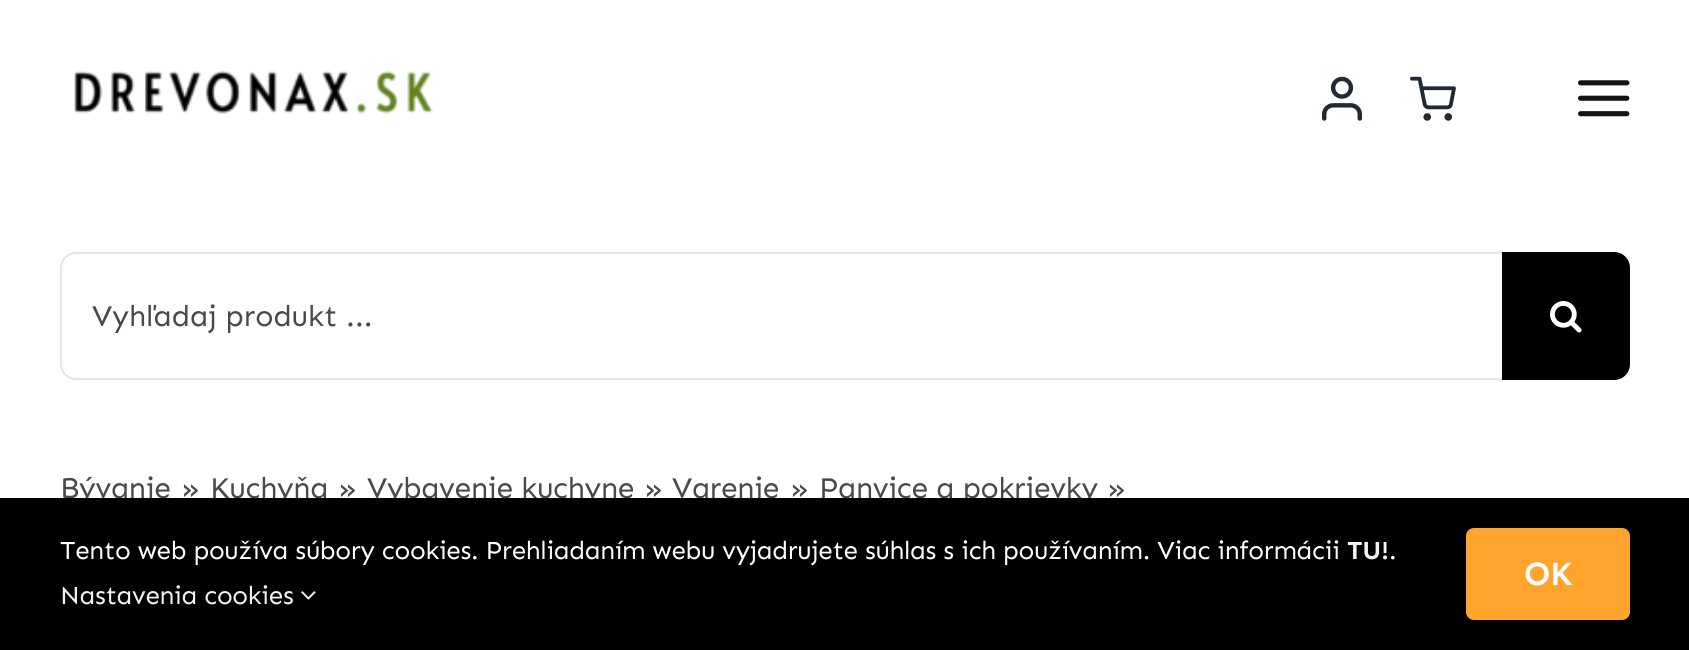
#include <cairo.h>
#include <math.h>
#include <stddef.h>

static cairo_t *ctx;

static void use_color(int r, int g, int b) {
    cairo_set_source_rgb(ctx, r / 255.0, g / 255.0, b / 255.0);
}

static void spaced_text(double x, double y, const char *s, double letter, double word) {
    cairo_move_to(ctx, x, y);
    while (*s) {
        char ch[5] = {0};
        int n = 0;
        do ch[n++] = *s++; while ((*s & 0xC0) == 0x80);
        cairo_show_text(ctx, ch);
        cairo_rel_move_to(ctx, letter + word * (*ch == ' '), 0);
    }
}

static void round_rect(double x, double y, double w, double h, double r) {
    cairo_new_sub_path(ctx);
    cairo_arc(ctx, x + w - r, y + h - r, r, 0, M_PI / 2);
    cairo_arc(ctx, x + r, y + h - r, r, M_PI / 2, M_PI);
    cairo_arc(ctx, x + r, y + r, r, M_PI, 1.5 * M_PI);
    cairo_arc(ctx, x + w - r, y + r, r, 1.5 * M_PI, 2 * M_PI);
    cairo_close_path(ctx);
}

static void picture(const char *path, double x, double y, double w, double h) {
    cairo_surface_t *image = cairo_image_surface_create_from_png(path);
    cairo_save(ctx);
    cairo_set_source_surface(ctx, image, x, y);
    cairo_rectangle(ctx, x, y, w, h);
    cairo_fill(ctx);
    cairo_restore(ctx);
    cairo_surface_destroy(image);
}

int main(void) {
    cairo_surface_t *surface = cairo_image_surface_create(CAIRO_FORMAT_RGB24, 1689, 650);
    ctx = cairo_create(surface);
    cairo_font_options_t *options = cairo_font_options_create();
    cairo_font_options_set_hint_metrics(options, CAIRO_HINT_METRICS_OFF);
    cairo_font_options_set_hint_style(options, CAIRO_HINT_STYLE_NONE);
    cairo_set_font_options(ctx, options);
    cairo_set_miter_limit(ctx, 4);
    use_color(255, 255, 255);
    cairo_paint(ctx);
    picture("img1.png", 74, 70, 359, 44);
    picture("img2.png", 1322, 76, 40, 45);
    picture("img3.png", 1410, 76, 46, 45);
    picture("img4.png", 1578, 80, 52, 37);
    use_color(229, 229, 229);
    cairo_new_path(ctx);
    cairo_move_to(ctx, 76, 252);
    cairo_curve_to(ctx, 67, 252, 60, 259, 60, 268);
    cairo_line_to(ctx, 60, 364);
    cairo_curve_to(ctx, 60, 373, 67, 380, 76, 380);
    cairo_line_to(ctx, 1502, 380);
    cairo_line_to(ctx, 1502, 378);
    cairo_line_to(ctx, 76, 378);
    cairo_curve_to(ctx, 68, 378, 62, 372, 62, 364);
    cairo_line_to(ctx, 62, 268);
    cairo_curve_to(ctx, 62, 260, 68, 254, 76, 254);
    cairo_line_to(ctx, 1502, 254);
    cairo_line_to(ctx, 1502, 252);
    cairo_close_path(ctx);
    cairo_fill(ctx);
    cairo_select_font_face(ctx, "Sen", CAIRO_FONT_SLANT_NORMAL, CAIRO_FONT_WEIGHT_NORMAL);
    cairo_set_font_size(ctx, 30);
    use_color(73, 73, 73);
    cairo_move_to(ctx, 92, 326);
    cairo_show_text(ctx, "Vyhľadaj produkt ...");
    use_color(0, 0, 0);
    cairo_new_path(ctx);
    cairo_move_to(ctx, 1502, 252);
    cairo_line_to(ctx, 1614, 252);
    cairo_curve_to(ctx, 1623, 252, 1630, 259, 1630, 268);
    cairo_line_to(ctx, 1630, 364);
    cairo_curve_to(ctx, 1630, 373, 1623, 380, 1614, 380);
    cairo_line_to(ctx, 1502, 380);
    cairo_close_path(ctx);
    cairo_fill(ctx);
    picture("img5.png", 1550, 301, 32, 32);
    use_color(73, 73, 73);
    spaced_text(60, 498, "Bývanie", -0.34, 0);
    spaced_text(181, 498, "»", -0.34, 0);
    spaced_text(210, 498, "Kuchyňa", -0.34, 0);
    spaced_text(338, 498, "»", -0.34, 0);
    spaced_text(367, 498, "Vybavenie kuchyne", -0.34, 0);
    spaced_text(644, 498, "»", -0.34, 0);
    spaced_text(672, 498, "Varenie", -0.34, 0);
    spaced_text(790, 498, "»", -0.34, 0);
    spaced_text(819, 498, "Panvice a pokrievky", -0.34, 0);
    spaced_text(1107, 498, "»", -0.34, 0);
    use_color(0, 0, 0);
    cairo_rectangle(ctx, 0, 498, 1689, 152);
    cairo_fill(ctx);
    cairo_set_font_size(ctx, 26);
    use_color(255, 255, 255);
    spaced_text(60, 559, "Tento web používa súbory cookies. Prehliadaním webu vyjadrujete súhlas s ich používaním. Viac informácii", -0.34, 0);
    cairo_select_font_face(ctx, "Sen", CAIRO_FONT_SLANT_NORMAL, CAIRO_FONT_WEIGHT_BOLD);
    use_color(242, 242, 242);
    spaced_text(1347, 559, "TU!", -0.34, 0);
    cairo_select_font_face(ctx, "Sen", CAIRO_FONT_SLANT_NORMAL, CAIRO_FONT_WEIGHT_NORMAL);
    use_color(255, 255, 255);
    spaced_text(1389, 559, ".", -0.34, 0);
    use_color(242, 242, 242);
    spaced_text(60, 604, "Nastavenia cookies", -0.34, 0);
    picture("img6.png", 301, 591, 15, 9);
    use_color(255, 164, 45);
    round_rect(1466, 528, 164, 92, 8);
    cairo_fill(ctx);
    cairo_select_font_face(ctx, "Sen SemiBold", CAIRO_FONT_SLANT_NORMAL, CAIRO_FONT_WEIGHT_NORMAL);
    cairo_set_font_size(ctx, 34);
    use_color(255, 255, 255);
    spaced_text(1524, 585, "OK", -0.34, 0);
    cairo_surface_write_to_png(surface, "result.png");
    cairo_font_options_destroy(options);
    cairo_destroy(ctx);
    cairo_surface_destroy(surface);
    return 0;
}
